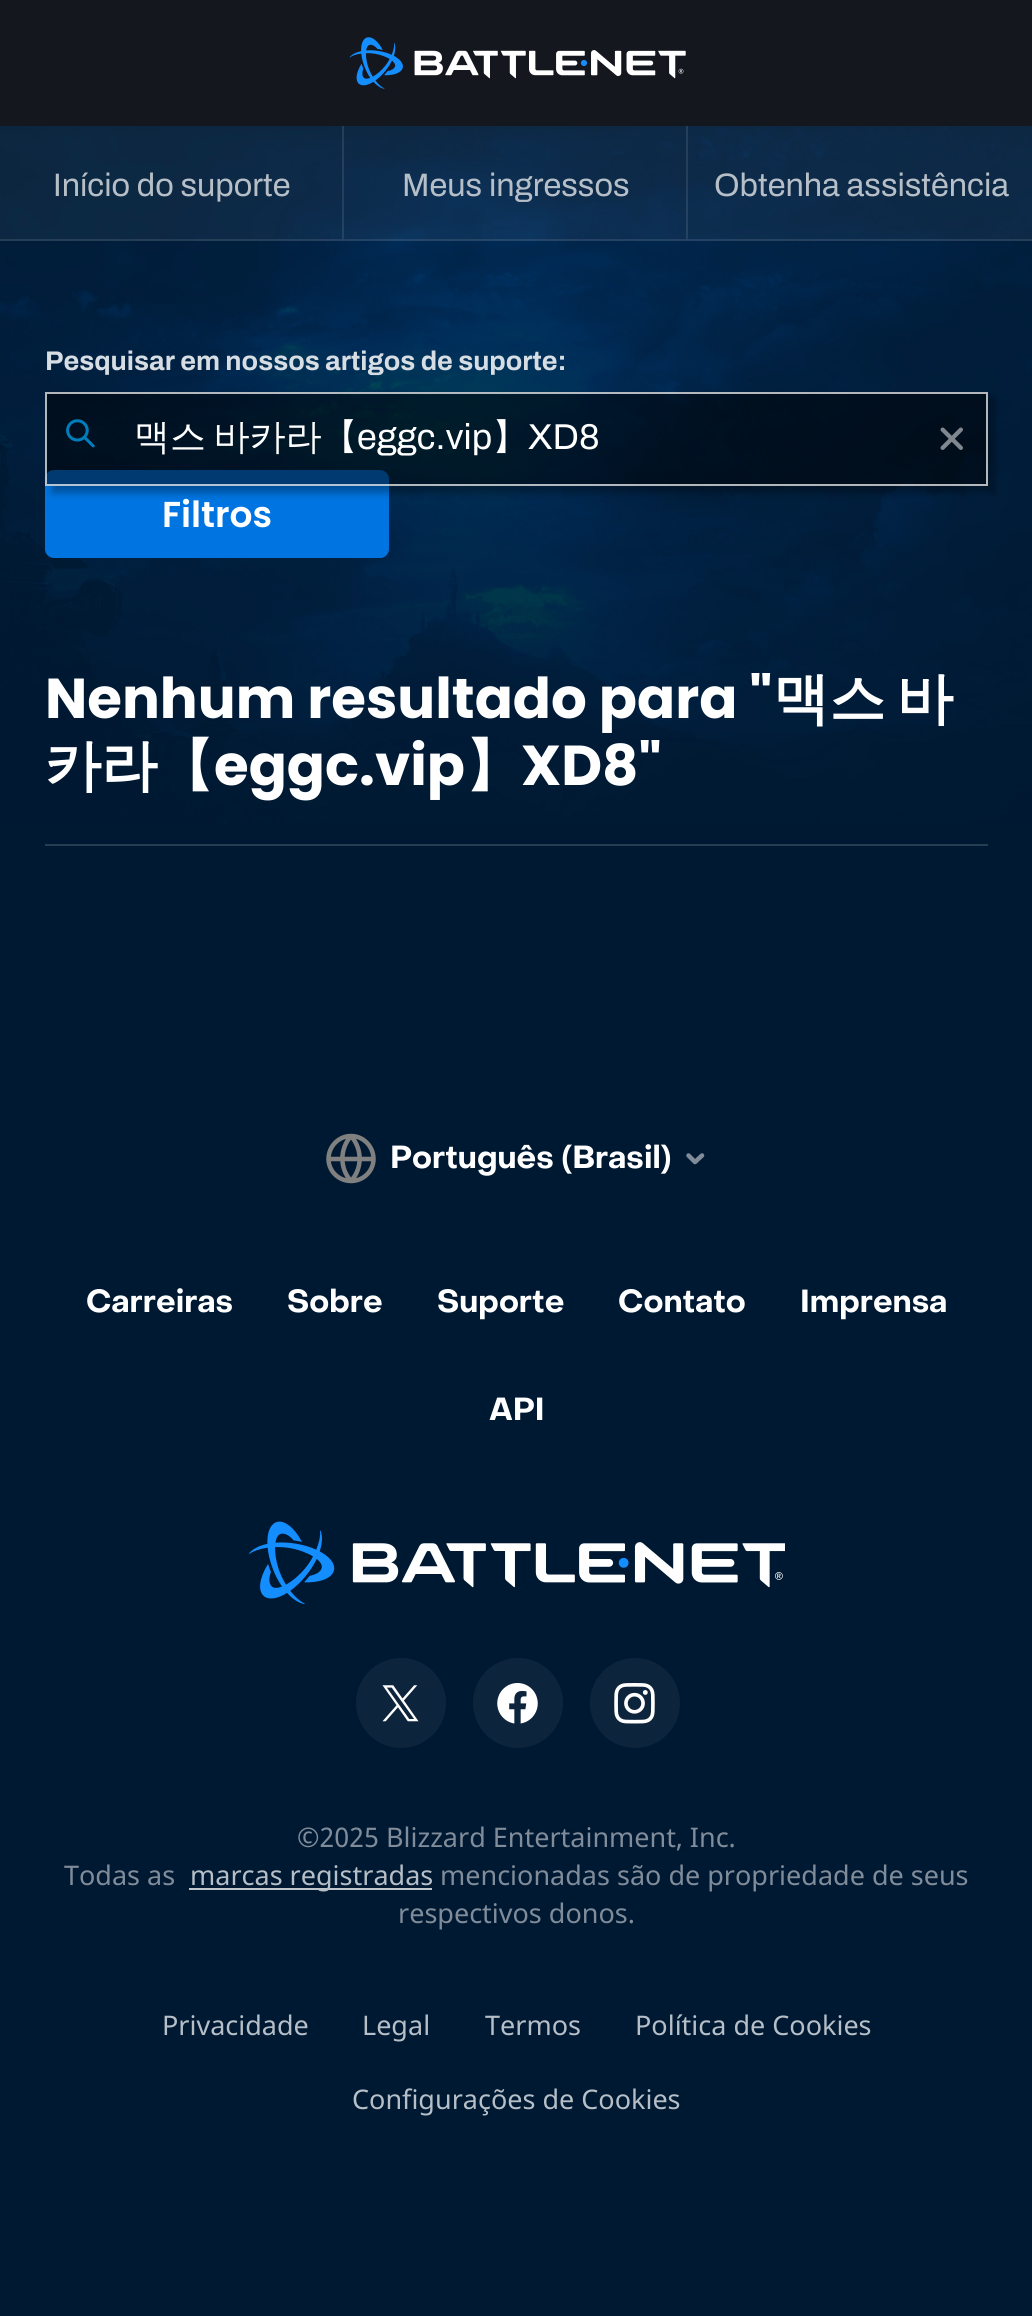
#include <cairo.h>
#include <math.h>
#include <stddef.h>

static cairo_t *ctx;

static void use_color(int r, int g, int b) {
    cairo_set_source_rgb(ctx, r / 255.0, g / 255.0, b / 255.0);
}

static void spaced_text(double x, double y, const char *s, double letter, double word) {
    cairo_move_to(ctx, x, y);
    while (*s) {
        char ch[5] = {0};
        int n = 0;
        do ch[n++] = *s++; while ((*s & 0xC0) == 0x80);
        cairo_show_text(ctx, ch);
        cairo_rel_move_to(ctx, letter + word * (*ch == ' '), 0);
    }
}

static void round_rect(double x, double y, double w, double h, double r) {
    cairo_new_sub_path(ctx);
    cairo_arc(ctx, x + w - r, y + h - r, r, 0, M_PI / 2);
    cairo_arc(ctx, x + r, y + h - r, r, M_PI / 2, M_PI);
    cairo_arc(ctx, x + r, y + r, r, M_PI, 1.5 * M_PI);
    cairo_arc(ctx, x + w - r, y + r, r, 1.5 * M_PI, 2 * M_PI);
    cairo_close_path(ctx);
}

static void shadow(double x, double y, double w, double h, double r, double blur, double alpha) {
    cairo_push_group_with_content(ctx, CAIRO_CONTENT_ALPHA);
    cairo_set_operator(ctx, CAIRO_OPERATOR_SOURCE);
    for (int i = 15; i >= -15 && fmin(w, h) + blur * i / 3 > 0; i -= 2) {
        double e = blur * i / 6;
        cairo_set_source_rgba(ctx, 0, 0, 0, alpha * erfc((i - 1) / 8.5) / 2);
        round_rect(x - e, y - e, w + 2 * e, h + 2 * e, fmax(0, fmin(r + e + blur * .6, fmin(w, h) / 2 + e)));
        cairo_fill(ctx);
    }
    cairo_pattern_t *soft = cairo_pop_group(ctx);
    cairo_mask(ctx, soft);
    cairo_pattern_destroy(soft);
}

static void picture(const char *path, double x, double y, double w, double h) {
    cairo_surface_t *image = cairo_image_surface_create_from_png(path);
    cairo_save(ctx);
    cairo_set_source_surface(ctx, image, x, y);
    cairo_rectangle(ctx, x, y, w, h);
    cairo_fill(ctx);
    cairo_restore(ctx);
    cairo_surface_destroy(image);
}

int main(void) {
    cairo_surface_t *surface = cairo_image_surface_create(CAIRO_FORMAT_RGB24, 1032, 2316);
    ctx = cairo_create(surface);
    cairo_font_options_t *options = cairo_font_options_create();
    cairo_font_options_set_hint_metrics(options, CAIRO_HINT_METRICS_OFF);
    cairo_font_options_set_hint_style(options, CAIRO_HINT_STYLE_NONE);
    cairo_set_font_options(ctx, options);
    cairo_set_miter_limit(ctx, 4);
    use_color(0, 25, 50);
    cairo_paint(ctx);
    use_color(21, 23, 30);
    cairo_rectangle(ctx, 0, 0, 1032, 126);
    cairo_fill(ctx);
    picture("img1.png", 349, 37, 337, 52);
    picture("img2.png", 0, 126, 1032, 698);
    cairo_set_source_rgba(ctx, 1, 1, 1, 0.05);
    cairo_rectangle(ctx, 0, 126, 1032, 115);
    cairo_fill(ctx);
    cairo_set_source_rgba(ctx, 1, 1, 1, 0.1);
    cairo_rectangle(ctx, 0, 239, 1032, 2);
    cairo_fill(ctx);
    cairo_rectangle(ctx, 342, 126, 2, 113);
    cairo_fill(ctx);
    cairo_select_font_face(ctx, "Archivo", CAIRO_FONT_SLANT_NORMAL, CAIRO_FONT_WEIGHT_NORMAL);
    cairo_set_font_size(ctx, 32.5);
    use_color(182, 191, 199);
    cairo_move_to(ctx, 53, 196);
    cairo_show_text(ctx, "Início do suporte");
    cairo_set_source_rgba(ctx, 1, 1, 1, 0.1);
    cairo_rectangle(ctx, 686, 126, 2, 113);
    cairo_fill(ctx);
    use_color(182, 191, 199);
    cairo_move_to(ctx, 402, 196);
    cairo_show_text(ctx, "Meus ingressos");
    cairo_move_to(ctx, 714, 196);
    cairo_show_text(ctx, "Obtenha assistência");
    cairo_select_font_face(ctx, "Archivo", CAIRO_FONT_SLANT_NORMAL, CAIRO_FONT_WEIGHT_BOLD);
    cairo_set_font_size(ctx, 27);
    use_color(214, 221, 227);
    cairo_move_to(ctx, 45, 370);
    cairo_show_text(ctx, "Pesquisar em nossos artigos de suporte:");
    use_color(0, 116, 224);
    round_rect(45, 470, 344, 88, 9);
    cairo_fill(ctx);
    cairo_set_source_rgba(ctx, 0, 0, 0, 0.5);
    cairo_rectangle(ctx, 45, 392, 943, 94);
    cairo_fill(ctx);
    cairo_save(ctx);
    cairo_set_fill_rule(ctx, CAIRO_FILL_RULE_EVEN_ODD);
    cairo_new_path(ctx);
    cairo_move_to(ctx, 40, 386);
    cairo_line_to(ctx, 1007, 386);
    cairo_line_to(ctx, 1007, 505);
    cairo_line_to(ctx, 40, 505);
    cairo_close_path(ctx);
    cairo_move_to(ctx, 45, 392);
    cairo_line_to(ctx, 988, 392);
    cairo_line_to(ctx, 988, 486);
    cairo_line_to(ctx, 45, 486);
    cairo_close_path(ctx);
    cairo_clip(ctx);
    use_color(0, 0, 0);
    shadow(52, 398, 943, 95, 0, 3.5, 0.3);
    cairo_restore(ctx);
    cairo_rectangle(ctx, 46, 393, 941, 92);
    cairo_set_source_rgba(ctx, 1, 1, 1, 0.7);
    cairo_stroke(ctx);
    picture("img3.png", 66, 419, 29, 29);
    cairo_select_font_face(ctx, "WenQuanYi Zen Hei Medium", CAIRO_FONT_SLANT_NORMAL, CAIRO_FONT_WEIGHT_NORMAL);
    cairo_set_font_size(ctx, 36);
    use_color(255, 255, 255);
    spaced_text(134, 449, "맥스 바카라【", 0, -3);
    cairo_select_font_face(ctx, "Archivo", CAIRO_FONT_SLANT_NORMAL, CAIRO_FONT_WEIGHT_NORMAL);
    cairo_move_to(ctx, 357, 449);
    cairo_show_text(ctx, "eggc.vip");
    cairo_select_font_face(ctx, "WenQuanYi Zen Hei Medium", CAIRO_FONT_SLANT_NORMAL, CAIRO_FONT_WEIGHT_NORMAL);
    cairo_move_to(ctx, 492, 449);
    cairo_show_text(ctx, "】");
    cairo_select_font_face(ctx, "Archivo", CAIRO_FONT_SLANT_NORMAL, CAIRO_FONT_WEIGHT_NORMAL);
    cairo_move_to(ctx, 528, 449);
    cairo_show_text(ctx, "XD8");
    picture("img4.png", 940, 427, 23, 23);
    cairo_select_font_face(ctx, "Poppins SemiBold", CAIRO_FONT_SLANT_NORMAL, CAIRO_FONT_WEIGHT_NORMAL);
    cairo_move_to(ctx, 162, 527);
    cairo_show_text(ctx, "Filtros");
    cairo_select_font_face(ctx, "Poppins", CAIRO_FONT_SLANT_NORMAL, CAIRO_FONT_WEIGHT_BOLD);
    cairo_set_font_size(ctx, 56.25);
    cairo_move_to(ctx, 45, 718);
    cairo_show_text(ctx, "Nenhum resultado para \"");
    cairo_select_font_face(ctx, "WenQuanYi Zen Hei", CAIRO_FONT_SLANT_NORMAL, CAIRO_FONT_WEIGHT_BOLD);
    cairo_move_to(ctx, 773, 718);
    cairo_show_text(ctx, "맥스");
    cairo_move_to(ctx, 897, 718);
    cairo_show_text(ctx, "바");
    cairo_move_to(ctx, 45, 785);
    cairo_show_text(ctx, "카라【");
    cairo_select_font_face(ctx, "Poppins", CAIRO_FONT_SLANT_NORMAL, CAIRO_FONT_WEIGHT_BOLD);
    cairo_move_to(ctx, 214, 785);
    cairo_show_text(ctx, "eggc.vip");
    cairo_select_font_face(ctx, "WenQuanYi Zen Hei", CAIRO_FONT_SLANT_NORMAL, CAIRO_FONT_WEIGHT_BOLD);
    cairo_move_to(ctx, 465, 785);
    cairo_show_text(ctx, "】");
    cairo_select_font_face(ctx, "Poppins", CAIRO_FONT_SLANT_NORMAL, CAIRO_FONT_WEIGHT_BOLD);
    cairo_move_to(ctx, 521, 785);
    cairo_show_text(ctx, "XD8\"");
    use_color(38, 60, 81);
    cairo_rectangle(ctx, 45, 844, 943, 2);
    cairo_fill(ctx);
    cairo_new_path(ctx);
    cairo_move_to(ctx, 373.5, 1159);
    cairo_curve_to(ctx, 373.5, 1171, 363.5, 1181, 351, 1181);
    cairo_move_to(ctx, 373.5, 1159);
    cairo_curve_to(ctx, 373.5, 1146.5, 363.5, 1136, 351, 1136);
    cairo_move_to(ctx, 373.5, 1159);
    cairo_line_to(ctx, 328.5, 1159);
    cairo_move_to(ctx, 351, 1181);
    cairo_curve_to(ctx, 338.5, 1181, 328.5, 1171, 328.5, 1159);
    cairo_move_to(ctx, 351, 1181);
    cairo_curve_to(ctx, 362.5, 1168.5, 362.5, 1149, 351, 1136);
    cairo_move_to(ctx, 351, 1181);
    cairo_curve_to(ctx, 339.5, 1168.5, 339.5, 1149, 351, 1136);
    cairo_move_to(ctx, 328.5, 1159);
    cairo_curve_to(ctx, 328.5, 1146.5, 338.5, 1136, 351, 1136);
    use_color(128, 128, 128);
    cairo_set_line_width(ctx, 4.5);
    cairo_set_line_cap(ctx, CAIRO_LINE_CAP_ROUND);
    cairo_set_line_join(ctx, CAIRO_LINE_JOIN_ROUND);
    cairo_stroke(ctx);
    cairo_select_font_face(ctx, "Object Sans", CAIRO_FONT_SLANT_NORMAL, CAIRO_FONT_WEIGHT_BOLD);
    cairo_set_font_size(ctx, 31.5);
    use_color(255, 255, 255);
    cairo_move_to(ctx, 390, 1168);
    cairo_show_text(ctx, "Português (Brasil)");
    cairo_new_path(ctx);
    cairo_move_to(ctx, 688.5, 1155.5);
    cairo_line_to(ctx, 695, 1162);
    cairo_line_to(ctx, 702, 1155.5);
    use_color(128, 140, 153);
    cairo_stroke(ctx);
    use_color(255, 255, 255);
    cairo_move_to(ctx, 86, 1312);
    cairo_show_text(ctx, "Carreiras");
    cairo_move_to(ctx, 287, 1312);
    cairo_show_text(ctx, "Sobre");
    cairo_move_to(ctx, 437, 1312);
    cairo_show_text(ctx, "Suporte");
    cairo_move_to(ctx, 618, 1312);
    cairo_show_text(ctx, "Contato");
    cairo_move_to(ctx, 800, 1312);
    cairo_show_text(ctx, "Imprensa");
    cairo_move_to(ctx, 489, 1420);
    cairo_show_text(ctx, "API");
    picture("img5.png", 249, 1521, 536, 83);
    use_color(13, 37, 60);
    cairo_arc(ctx, 401, 1703, 45, 0, 2 * M_PI);
    cairo_fill(ctx);
    picture("img6.png", 382, 1685, 37, 37);
    cairo_arc(ctx, 518, 1703, 45, 0, 2 * M_PI);
    cairo_fill(ctx);
    picture("img7.png", 497, 1683, 41, 41);
    cairo_arc(ctx, 635, 1703, 45, 0, 2 * M_PI);
    cairo_fill(ctx);
    picture("img8.png", 614, 1683, 41, 41);
    cairo_select_font_face(ctx, "Noto Sans", CAIRO_FONT_SLANT_NORMAL, CAIRO_FONT_WEIGHT_NORMAL);
    cairo_set_font_size(ctx, 27);
    use_color(128, 140, 153);
    cairo_move_to(ctx, 297, 1847);
    cairo_show_text(ctx, "©2025 Blizzard Entertainment, Inc.");
    cairo_move_to(ctx, 64, 1885);
    cairo_show_text(ctx, "Todas as");
    use_color(192, 198, 204);
    cairo_rectangle(ctx, 189, 1888, 243, 2);
    cairo_fill(ctx);
    use_color(182, 191, 199);
    cairo_move_to(ctx, 190, 1885);
    cairo_show_text(ctx, "marcas registradas");
    use_color(128, 140, 153);
    cairo_move_to(ctx, 440, 1885);
    cairo_show_text(ctx, "mencionadas são de propriedade de seus");
    cairo_move_to(ctx, 398, 1923);
    cairo_show_text(ctx, "respectivos donos.");
    use_color(182, 191, 199);
    cairo_move_to(ctx, 162, 2035);
    cairo_show_text(ctx, "Privacidade");
    cairo_move_to(ctx, 362, 2035);
    cairo_show_text(ctx, "Legal");
    cairo_move_to(ctx, 485, 2035);
    cairo_show_text(ctx, "Termos");
    cairo_move_to(ctx, 635, 2035);
    cairo_show_text(ctx, "Política de Cookies");
    cairo_move_to(ctx, 352, 2109);
    cairo_show_text(ctx, "Configurações de Cookies");
    cairo_surface_write_to_png(surface, "result.png");
    cairo_font_options_destroy(options);
    cairo_destroy(ctx);
    cairo_surface_destroy(surface);
    return 0;
}
